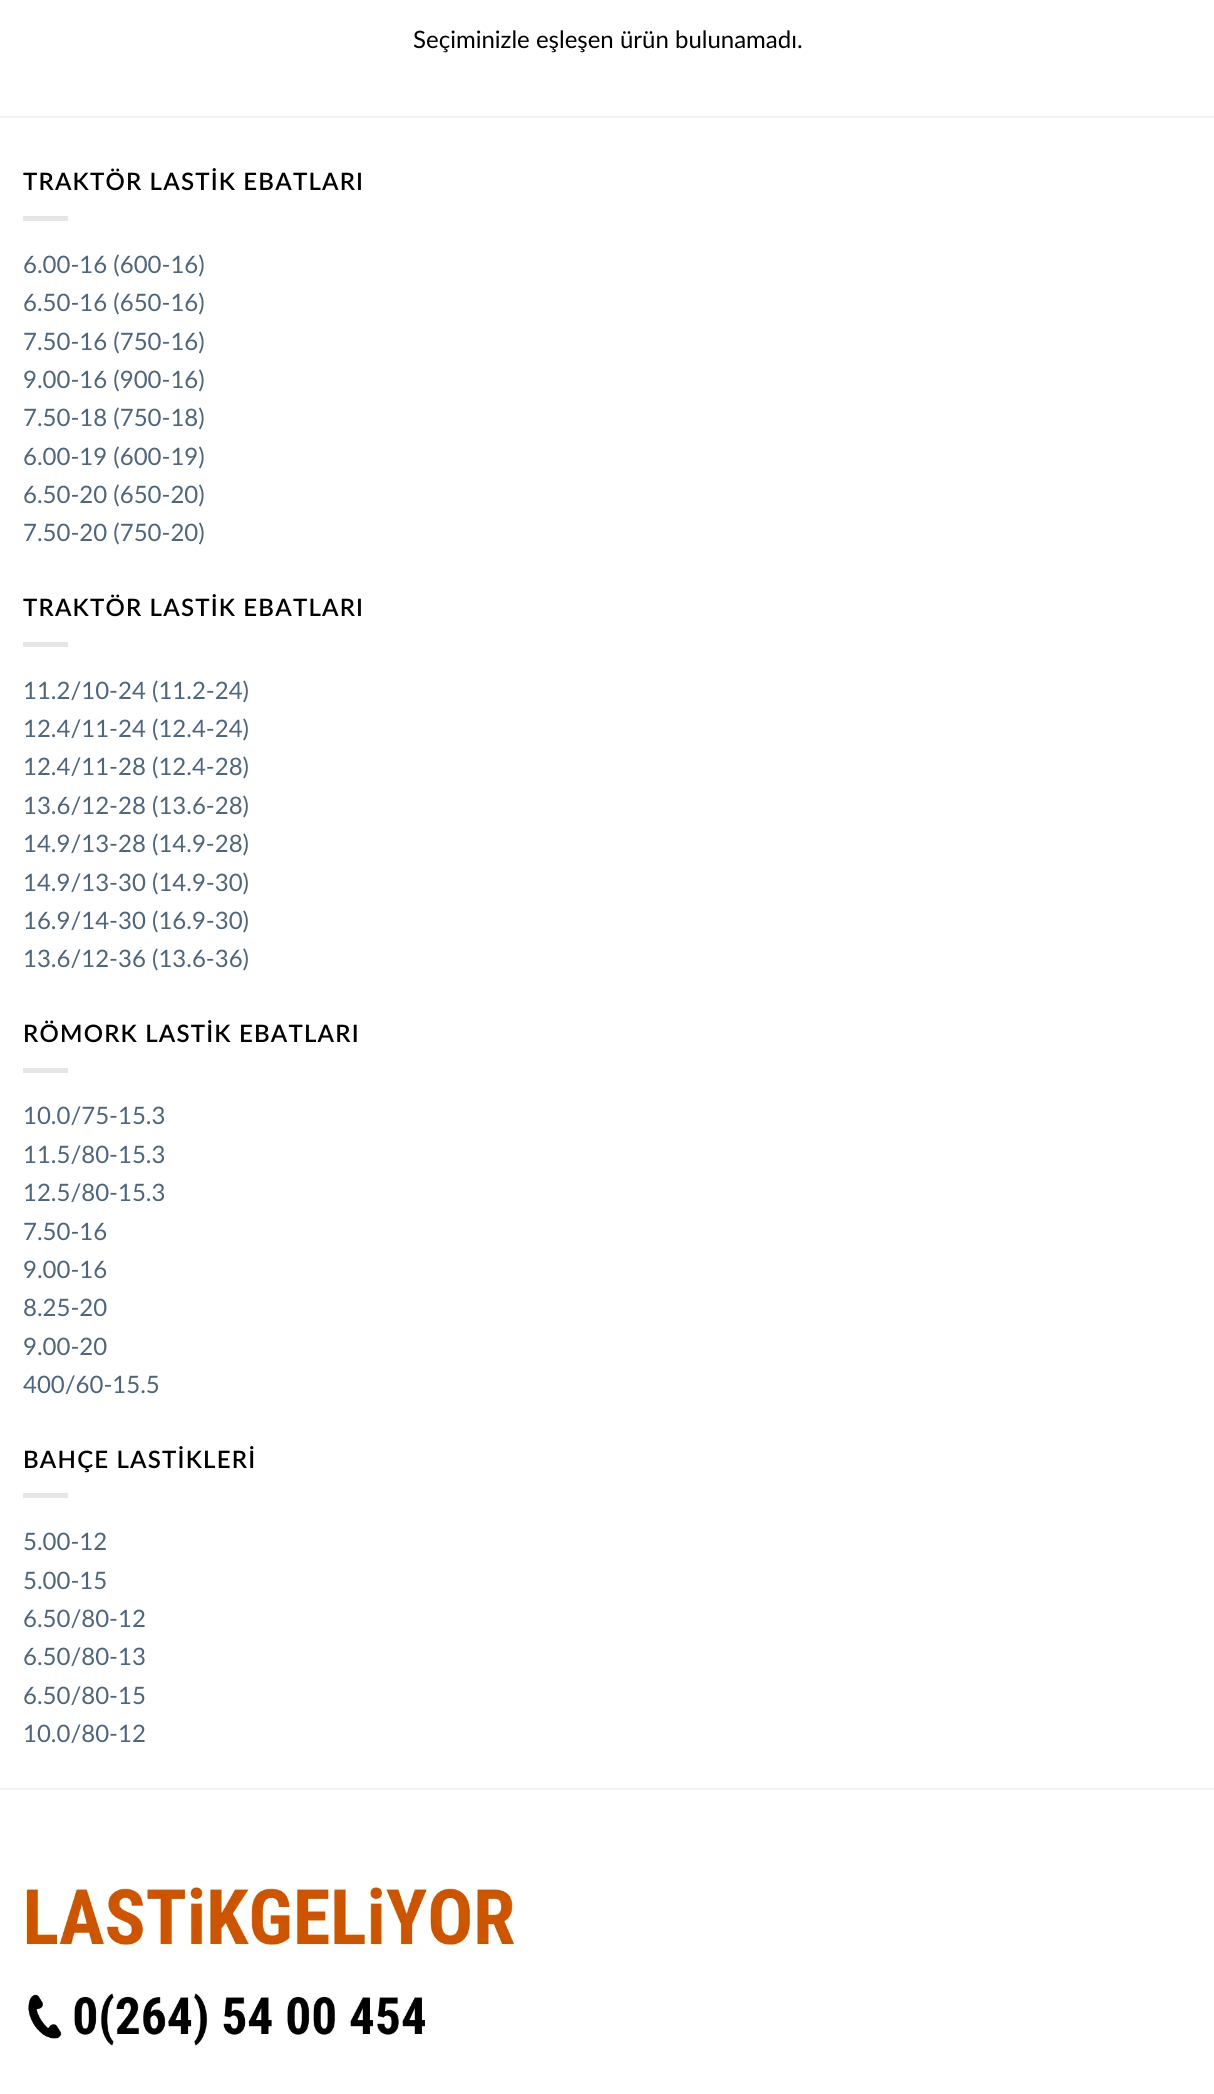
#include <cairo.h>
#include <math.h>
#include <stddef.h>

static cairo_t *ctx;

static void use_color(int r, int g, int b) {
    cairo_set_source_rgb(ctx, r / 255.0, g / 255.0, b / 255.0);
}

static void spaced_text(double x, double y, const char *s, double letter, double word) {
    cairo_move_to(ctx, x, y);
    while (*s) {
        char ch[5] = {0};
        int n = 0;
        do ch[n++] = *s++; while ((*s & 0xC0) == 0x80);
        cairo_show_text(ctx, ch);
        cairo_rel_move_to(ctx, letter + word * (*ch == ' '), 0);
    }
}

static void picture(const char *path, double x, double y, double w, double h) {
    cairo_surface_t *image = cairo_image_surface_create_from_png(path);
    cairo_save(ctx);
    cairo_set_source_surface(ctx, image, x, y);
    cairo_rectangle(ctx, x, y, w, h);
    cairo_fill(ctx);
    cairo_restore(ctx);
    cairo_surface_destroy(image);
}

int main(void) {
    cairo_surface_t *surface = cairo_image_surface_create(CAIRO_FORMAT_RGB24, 1214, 2094);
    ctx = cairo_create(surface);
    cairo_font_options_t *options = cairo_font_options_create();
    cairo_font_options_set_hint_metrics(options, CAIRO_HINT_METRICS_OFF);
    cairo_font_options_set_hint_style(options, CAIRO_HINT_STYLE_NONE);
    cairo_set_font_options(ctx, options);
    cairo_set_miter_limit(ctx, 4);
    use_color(255, 255, 255);
    cairo_paint(ctx);
    cairo_select_font_face(ctx, "Lato", CAIRO_FONT_SLANT_NORMAL, CAIRO_FONT_WEIGHT_NORMAL);
    cairo_set_font_size(ctx, 24);
    use_color(0, 0, 0);
    cairo_move_to(ctx, 413, 48);
    cairo_show_text(ctx, "Seçiminizle eşleşen ürün bulunamadı.");
    use_color(242, 242, 242);
    cairo_rectangle(ctx, 0, 116, 1214, 2);
    cairo_fill(ctx);
    cairo_select_font_face(ctx, "Lato SemiBold", CAIRO_FONT_SLANT_NORMAL, CAIRO_FONT_WEIGHT_NORMAL);
    use_color(0, 0, 0);
    spaced_text(23, 190, "TRAKTÖR LASTİK EBATLARI", 1.2, 0);
    use_color(230, 230, 230);
    cairo_rectangle(ctx, 23, 216, 45, 5);
    cairo_fill(ctx);
    cairo_select_font_face(ctx, "Lato", CAIRO_FONT_SLANT_NORMAL, CAIRO_FONT_WEIGHT_NORMAL);
    use_color(78, 101, 123);
    cairo_move_to(ctx, 23, 273);
    cairo_show_text(ctx, "6.00-16 (600-16)");
    cairo_move_to(ctx, 23, 311);
    cairo_show_text(ctx, "6.50-16 (650-16)");
    cairo_move_to(ctx, 23, 350);
    cairo_show_text(ctx, "7.50-16 (750-16)");
    cairo_move_to(ctx, 23, 388);
    cairo_show_text(ctx, "9.00-16 (900-16)");
    cairo_move_to(ctx, 23, 426);
    cairo_show_text(ctx, "7.50-18 (750-18)");
    cairo_move_to(ctx, 23, 465);
    cairo_show_text(ctx, "6.00-19 (600-19)");
    cairo_move_to(ctx, 23, 503);
    cairo_show_text(ctx, "6.50-20 (650-20)");
    cairo_move_to(ctx, 23, 541);
    cairo_show_text(ctx, "7.50-20 (750-20)");
    cairo_select_font_face(ctx, "Lato SemiBold", CAIRO_FONT_SLANT_NORMAL, CAIRO_FONT_WEIGHT_NORMAL);
    use_color(0, 0, 0);
    spaced_text(23, 616, "TRAKTÖR LASTİK EBATLARI", 1.2, 0);
    use_color(230, 230, 230);
    cairo_rectangle(ctx, 23, 642, 45, 5);
    cairo_fill(ctx);
    cairo_select_font_face(ctx, "Lato", CAIRO_FONT_SLANT_NORMAL, CAIRO_FONT_WEIGHT_NORMAL);
    use_color(78, 101, 123);
    cairo_move_to(ctx, 23, 699);
    cairo_show_text(ctx, "11.2/10-24 (11.2-24)");
    cairo_move_to(ctx, 23, 737);
    cairo_show_text(ctx, "12.4/11-24 (12.4-24)");
    cairo_move_to(ctx, 23, 775);
    cairo_show_text(ctx, "12.4/11-28 (12.4-28)");
    cairo_move_to(ctx, 23, 814);
    cairo_show_text(ctx, "13.6/12-28 (13.6-28)");
    cairo_move_to(ctx, 23, 852);
    cairo_show_text(ctx, "14.9/13-28 (14.9-28)");
    cairo_move_to(ctx, 23, 891);
    cairo_show_text(ctx, "14.9/13-30 (14.9-30)");
    cairo_move_to(ctx, 23, 929);
    cairo_show_text(ctx, "16.9/14-30 (16.9-30)");
    cairo_move_to(ctx, 23, 967);
    cairo_show_text(ctx, "13.6/12-36 (13.6-36)");
    cairo_select_font_face(ctx, "Lato SemiBold", CAIRO_FONT_SLANT_NORMAL, CAIRO_FONT_WEIGHT_NORMAL);
    use_color(0, 0, 0);
    spaced_text(23, 1042, "RÖMORK LASTİK EBATLARI", 1.2, 0);
    use_color(230, 230, 230);
    cairo_rectangle(ctx, 23, 1068, 45, 5);
    cairo_fill(ctx);
    cairo_select_font_face(ctx, "Lato", CAIRO_FONT_SLANT_NORMAL, CAIRO_FONT_WEIGHT_NORMAL);
    use_color(78, 101, 123);
    cairo_move_to(ctx, 23, 1124);
    cairo_show_text(ctx, "10.0/75-15.3");
    cairo_move_to(ctx, 23, 1163);
    cairo_show_text(ctx, "11.5/80-15.3");
    cairo_move_to(ctx, 23, 1201);
    cairo_show_text(ctx, "12.5/80-15.3");
    cairo_move_to(ctx, 23, 1240);
    cairo_show_text(ctx, "7.50-16");
    cairo_move_to(ctx, 23, 1278);
    cairo_show_text(ctx, "9.00-16");
    cairo_move_to(ctx, 23, 1316);
    cairo_show_text(ctx, "8.25-20");
    cairo_move_to(ctx, 23, 1355);
    cairo_show_text(ctx, "9.00-20");
    cairo_move_to(ctx, 23, 1393);
    cairo_show_text(ctx, "400/60-15.5");
    cairo_select_font_face(ctx, "Lato SemiBold", CAIRO_FONT_SLANT_NORMAL, CAIRO_FONT_WEIGHT_NORMAL);
    use_color(0, 0, 0);
    spaced_text(23, 1468, "BAHÇE LASTİKLERİ", 1.2, 0);
    use_color(230, 230, 230);
    cairo_rectangle(ctx, 23, 1493, 45, 5);
    cairo_fill(ctx);
    cairo_select_font_face(ctx, "Lato", CAIRO_FONT_SLANT_NORMAL, CAIRO_FONT_WEIGHT_NORMAL);
    use_color(78, 101, 123);
    cairo_move_to(ctx, 23, 1550);
    cairo_show_text(ctx, "5.00-12");
    cairo_move_to(ctx, 23, 1589);
    cairo_show_text(ctx, "5.00-15");
    cairo_move_to(ctx, 23, 1627);
    cairo_show_text(ctx, "6.50/80-12");
    cairo_move_to(ctx, 23, 1665);
    cairo_show_text(ctx, "6.50/80-13");
    cairo_move_to(ctx, 23, 1704);
    cairo_show_text(ctx, "6.50/80-15");
    cairo_move_to(ctx, 23, 1742);
    cairo_show_text(ctx, "10.0/80-12");
    use_color(242, 242, 242);
    cairo_rectangle(ctx, 0, 1788, 1214, 2);
    cairo_fill(ctx);
    picture("img1.png", 22, 1883, 494, 163);
    cairo_surface_write_to_png(surface, "result.png");
    cairo_font_options_destroy(options);
    cairo_destroy(ctx);
    cairo_surface_destroy(surface);
    return 0;
}
